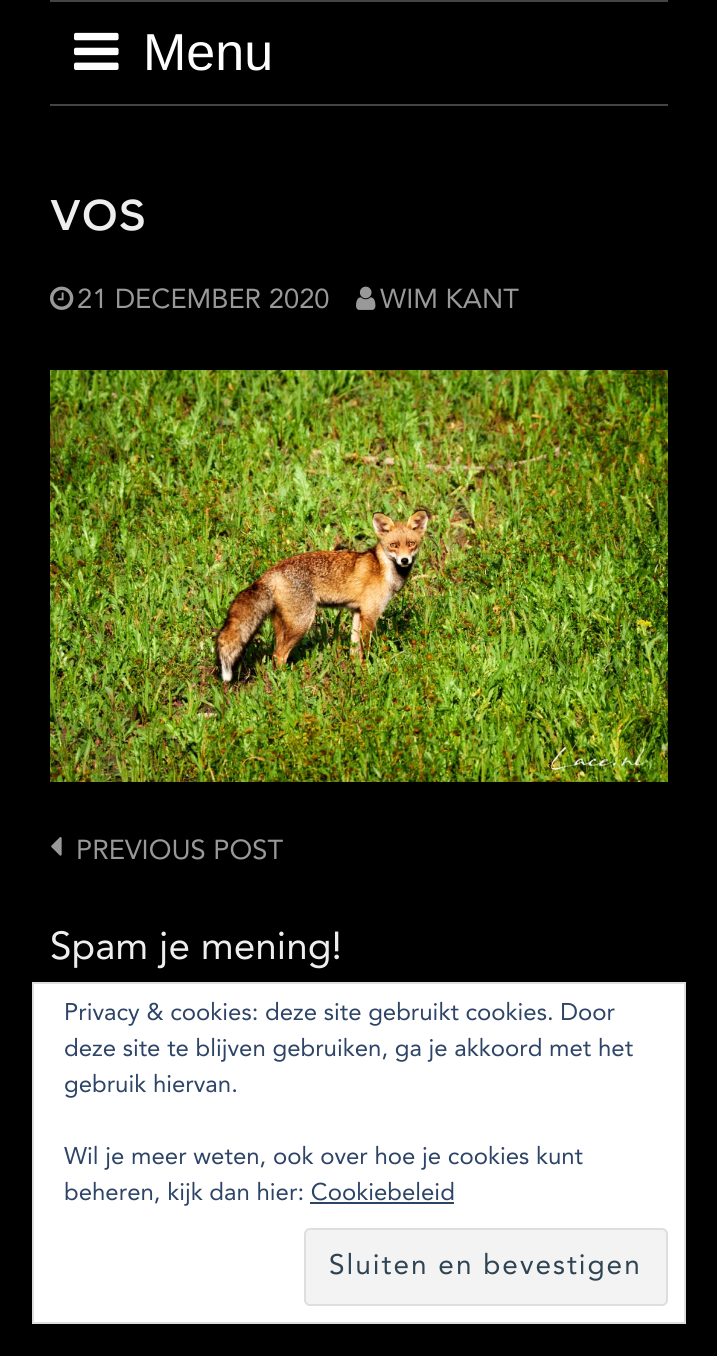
#include <cairo.h>
#include <math.h>
#include <stddef.h>

static cairo_t *ctx;

static void use_color(int r, int g, int b) {
    cairo_set_source_rgb(ctx, r / 255.0, g / 255.0, b / 255.0);
}

static void spaced_text(double x, double y, const char *s, double letter, double word) {
    cairo_move_to(ctx, x, y);
    while (*s) {
        char ch[5] = {0};
        int n = 0;
        do ch[n++] = *s++; while ((*s & 0xC0) == 0x80);
        cairo_show_text(ctx, ch);
        cairo_rel_move_to(ctx, letter + word * (*ch == ' '), 0);
    }
}

static void round_rect(double x, double y, double w, double h, double r) {
    cairo_new_sub_path(ctx);
    cairo_arc(ctx, x + w - r, y + h - r, r, 0, M_PI / 2);
    cairo_arc(ctx, x + r, y + h - r, r, M_PI / 2, M_PI);
    cairo_arc(ctx, x + r, y + r, r, M_PI, 1.5 * M_PI);
    cairo_arc(ctx, x + w - r, y + r, r, 1.5 * M_PI, 2 * M_PI);
    cairo_close_path(ctx);
}

static void picture(const char *path, double x, double y, double w, double h) {
    cairo_surface_t *image = cairo_image_surface_create_from_png(path);
    cairo_save(ctx);
    cairo_set_source_surface(ctx, image, x, y);
    cairo_rectangle(ctx, x, y, w, h);
    cairo_fill(ctx);
    cairo_restore(ctx);
    cairo_surface_destroy(image);
}

int main(void) {
    cairo_surface_t *surface = cairo_image_surface_create(CAIRO_FORMAT_RGB24, 717, 1356);
    ctx = cairo_create(surface);
    cairo_font_options_t *options = cairo_font_options_create();
    cairo_font_options_set_hint_metrics(options, CAIRO_HINT_METRICS_OFF);
    cairo_font_options_set_hint_style(options, CAIRO_HINT_STYLE_NONE);
    cairo_set_font_options(ctx, options);
    cairo_set_miter_limit(ctx, 4);
    use_color(0, 0, 0);
    cairo_paint(ctx);
    use_color(68, 68, 68);
    cairo_rectangle(ctx, 50, 0, 618, 2);
    cairo_fill(ctx);
    cairo_rectangle(ctx, 50, 104, 618, 2);
    cairo_fill(ctx);
    picture("img1.png", 74, 32, 45, 38);
    cairo_select_font_face(ctx, "Liberation Sans", CAIRO_FONT_SLANT_NORMAL, CAIRO_FONT_WEIGHT_NORMAL);
    cairo_set_font_size(ctx, 52);
    use_color(255, 255, 255);
    cairo_move_to(ctx, 143, 70);
    cairo_show_text(ctx, "Menu");
    cairo_select_font_face(ctx, "Avenir", CAIRO_FONT_SLANT_NORMAL, CAIRO_FONT_WEIGHT_NORMAL);
    cairo_set_font_size(ctx, 64);
    use_color(238, 238, 238);
    cairo_move_to(ctx, 50, 230);
    cairo_show_text(ctx, "vos");
    picture("img2.png", 50, 286, 24, 24);
    cairo_set_font_size(ctx, 27.25);
    use_color(153, 153, 153);
    cairo_move_to(ctx, 77, 308);
    cairo_show_text(ctx, "21 DECEMBER 2020");
    picture("img3.png", 356, 286, 20, 24);
    cairo_move_to(ctx, 380, 308);
    cairo_show_text(ctx, "WIM KANT");
    picture("img4.png", 50, 370, 618, 412);
    picture("img5.png", 51, 837, 11, 19);
    cairo_move_to(ctx, 76, 859);
    cairo_show_text(ctx, "PREVIOUS POST");
    cairo_set_font_size(ctx, 38.75);
    use_color(238, 238, 238);
    cairo_move_to(ctx, 50, 959);
    cairo_show_text(ctx, "Spam je mening!");
    use_color(255, 255, 255);
    cairo_rectangle(ctx, 33, 983, 652, 340);
    cairo_fill_preserve(ctx);
    use_color(222, 222, 222);
    cairo_stroke(ctx);
    cairo_set_font_size(ctx, 24);
    use_color(46, 68, 103);
    cairo_move_to(ctx, 64, 1020);
    cairo_show_text(ctx, "Privacy & cookies: deze site gebruikt cookies. Door");
    cairo_move_to(ctx, 64, 1056);
    cairo_show_text(ctx, "deze site te blijven gebruiken, ga je akkoord met het");
    cairo_move_to(ctx, 64, 1092);
    cairo_show_text(ctx, "gebruik hiervan.");
    cairo_move_to(ctx, 64, 1164);
    cairo_show_text(ctx, "Wil je meer weten, ook over hoe je cookies kunt");
    cairo_move_to(ctx, 64, 1200);
    cairo_show_text(ctx, "beheren, kijk dan hier: Cookiebeleid");
    cairo_rectangle(ctx, 310, 1202, 144, 2);
    cairo_fill(ctx);
    use_color(243, 243, 243);
    round_rect(305, 1229, 362, 76, 5);
    cairo_fill_preserve(ctx);
    use_color(222, 222, 222);
    cairo_stroke(ctx);
    cairo_set_font_size(ctx, 28);
    use_color(46, 68, 83);
    spaced_text(329, 1274, "Sluiten en bevestigen", 2, 0);
    cairo_surface_write_to_png(surface, "result.png");
    cairo_font_options_destroy(options);
    cairo_destroy(ctx);
    cairo_surface_destroy(surface);
    return 0;
}
